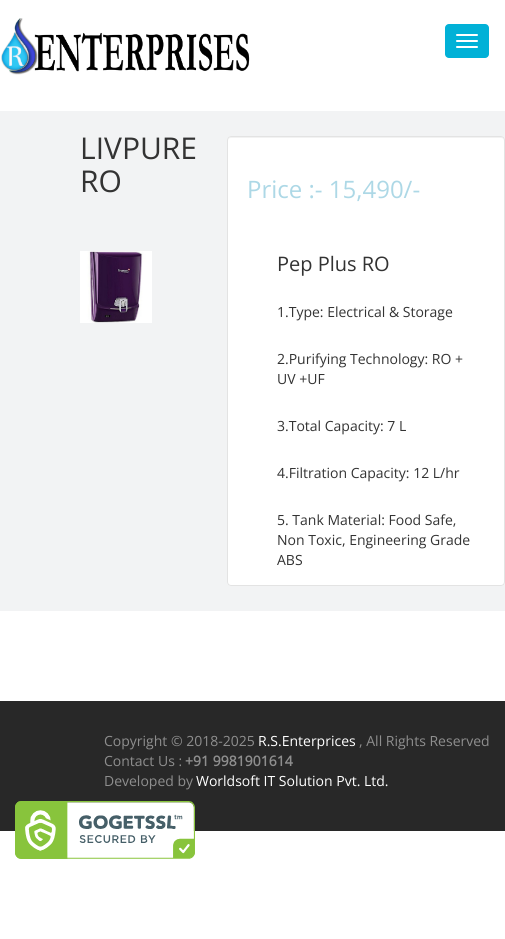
#include <cairo.h>
#include <math.h>
#include <stddef.h>

static cairo_t *ctx;

static void use_color(int r, int g, int b) {
    cairo_set_source_rgb(ctx, r / 255.0, g / 255.0, b / 255.0);
}

static void round_rect(double x, double y, double w, double h, double r) {
    cairo_new_sub_path(ctx);
    cairo_arc(ctx, x + w - r, y + h - r, r, 0, M_PI / 2);
    cairo_arc(ctx, x + r, y + h - r, r, M_PI / 2, M_PI);
    cairo_arc(ctx, x + r, y + r, r, M_PI, 1.5 * M_PI);
    cairo_arc(ctx, x + w - r, y + r, r, 1.5 * M_PI, 2 * M_PI);
    cairo_close_path(ctx);
}

static void picture(const char *path, double x, double y, double w, double h) {
    cairo_surface_t *image = cairo_image_surface_create_from_png(path);
    cairo_save(ctx);
    cairo_set_source_surface(ctx, image, x, y);
    cairo_rectangle(ctx, x, y, w, h);
    cairo_fill(ctx);
    cairo_restore(ctx);
    cairo_surface_destroy(image);
}

int main(void) {
    cairo_surface_t *surface = cairo_image_surface_create(CAIRO_FORMAT_RGB24, 505, 939);
    ctx = cairo_create(surface);
    cairo_font_options_t *options = cairo_font_options_create();
    cairo_font_options_set_hint_metrics(options, CAIRO_HINT_METRICS_OFF);
    cairo_font_options_set_hint_style(options, CAIRO_HINT_STYLE_NONE);
    cairo_set_font_options(ctx, options);
    cairo_set_miter_limit(ctx, 4);
    use_color(255, 255, 255);
    cairo_paint(ctx);
    picture("img1.png", 1, 18, 249, 57);
    use_color(1, 177, 215);
    round_rect(445, 24, 44, 34, 4);
    cairo_fill(ctx);
    use_color(255, 255, 255);
    round_rect(456, 34, 22, 2, 1);
    cairo_fill(ctx);
    round_rect(456, 40, 22, 2, 1);
    cairo_fill(ctx);
    round_rect(456, 46, 22, 2, 1);
    cairo_fill(ctx);
    use_color(242, 243, 244);
    cairo_rectangle(ctx, 0, 111, 505, 500);
    cairo_fill(ctx);
    cairo_select_font_face(ctx, "Open Sans", CAIRO_FONT_SLANT_NORMAL, CAIRO_FONT_WEIGHT_NORMAL);
    cairo_set_font_size(ctx, 30);
    use_color(51, 51, 51);
    cairo_move_to(ctx, 80, 159);
    cairo_show_text(ctx, "LIVPURE");
    cairo_move_to(ctx, 80, 192);
    cairo_show_text(ctx, "RO");
    picture("img2.png", 80, 251, 72, 72);
    use_color(255, 255, 255);
    round_rect(227, 136, 278, 450, 4);
    cairo_fill(ctx);
    use_color(242, 242, 242);
    cairo_new_path(ctx);
    cairo_move_to(ctx, 231, 138);
    cairo_line_to(ctx, 501, 138);
    cairo_curve_to(ctx, 503, 138, 504, 139, 504, 141);
    cairo_line_to(ctx, 504, 140);
    cairo_curve_to(ctx, 504, 138, 503, 137, 501, 137);
    cairo_line_to(ctx, 231, 137);
    cairo_curve_to(ctx, 229, 137, 228, 138, 228, 140);
    cairo_line_to(ctx, 228, 141);
    cairo_curve_to(ctx, 228, 139, 229, 138, 231, 138);
    cairo_close_path(ctx);
    cairo_fill(ctx);
    round_rect(227.5, 136.5, 277, 449, 3.5);
    use_color(227, 227, 227);
    cairo_set_line_width(ctx, 1);
    cairo_stroke(ctx);
    cairo_set_font_size(ctx, 24);
    use_color(173, 216, 230);
    cairo_move_to(ctx, 247, 198);
    cairo_show_text(ctx, "Price :- 15,490/-");
    cairo_set_font_size(ctx, 20);
    use_color(51, 51, 51);
    cairo_move_to(ctx, 277, 271);
    cairo_show_text(ctx, "Pep Plus RO");
    cairo_set_font_size(ctx, 14);
    cairo_move_to(ctx, 277, 317);
    cairo_show_text(ctx, "1.Type: Electrical & Storage");
    cairo_move_to(ctx, 277, 364);
    cairo_show_text(ctx, "2.Purifying Technology: RO +");
    cairo_move_to(ctx, 277, 384);
    cairo_show_text(ctx, "UV +UF");
    cairo_move_to(ctx, 277, 431);
    cairo_show_text(ctx, "3.Total Capacity: 7 L");
    cairo_move_to(ctx, 277, 478);
    cairo_show_text(ctx, "4.Filtration Capacity: 12 L/hr");
    cairo_move_to(ctx, 277, 525);
    cairo_show_text(ctx, "5. Tank Material: Food Safe,");
    cairo_move_to(ctx, 277, 545);
    cairo_show_text(ctx, "Non Toxic, Engineering Grade");
    cairo_move_to(ctx, 277, 565);
    cairo_show_text(ctx, "ABS");
    use_color(40, 40, 40);
    cairo_rectangle(ctx, 0, 701, 505, 130);
    cairo_fill(ctx);
    use_color(142, 142, 142);
    cairo_move_to(ctx, 104, 746);
    cairo_show_text(ctx, "Copyright © 2018-2025");
    use_color(255, 255, 255);
    cairo_move_to(ctx, 258, 746);
    cairo_show_text(ctx, "R.S.Enterprices");
    use_color(142, 142, 142);
    cairo_move_to(ctx, 359, 746);
    cairo_show_text(ctx, ", All Rights Reserved");
    cairo_move_to(ctx, 104, 766);
    cairo_show_text(ctx, "Contact Us :");
    cairo_select_font_face(ctx, "Open Sans", CAIRO_FONT_SLANT_NORMAL, CAIRO_FONT_WEIGHT_BOLD);
    cairo_move_to(ctx, 185, 766);
    cairo_show_text(ctx, "+91 9981901614");
    cairo_select_font_face(ctx, "Open Sans", CAIRO_FONT_SLANT_NORMAL, CAIRO_FONT_WEIGHT_NORMAL);
    cairo_move_to(ctx, 104, 786);
    cairo_show_text(ctx, "Developed by");
    use_color(255, 255, 255);
    cairo_move_to(ctx, 196, 786);
    cairo_show_text(ctx, "Worldsoft IT Solution Pvt. Ltd.");
    picture("img3.png", 15, 801, 180, 58);
    cairo_surface_write_to_png(surface, "result.png");
    cairo_font_options_destroy(options);
    cairo_destroy(ctx);
    cairo_surface_destroy(surface);
    return 0;
}
